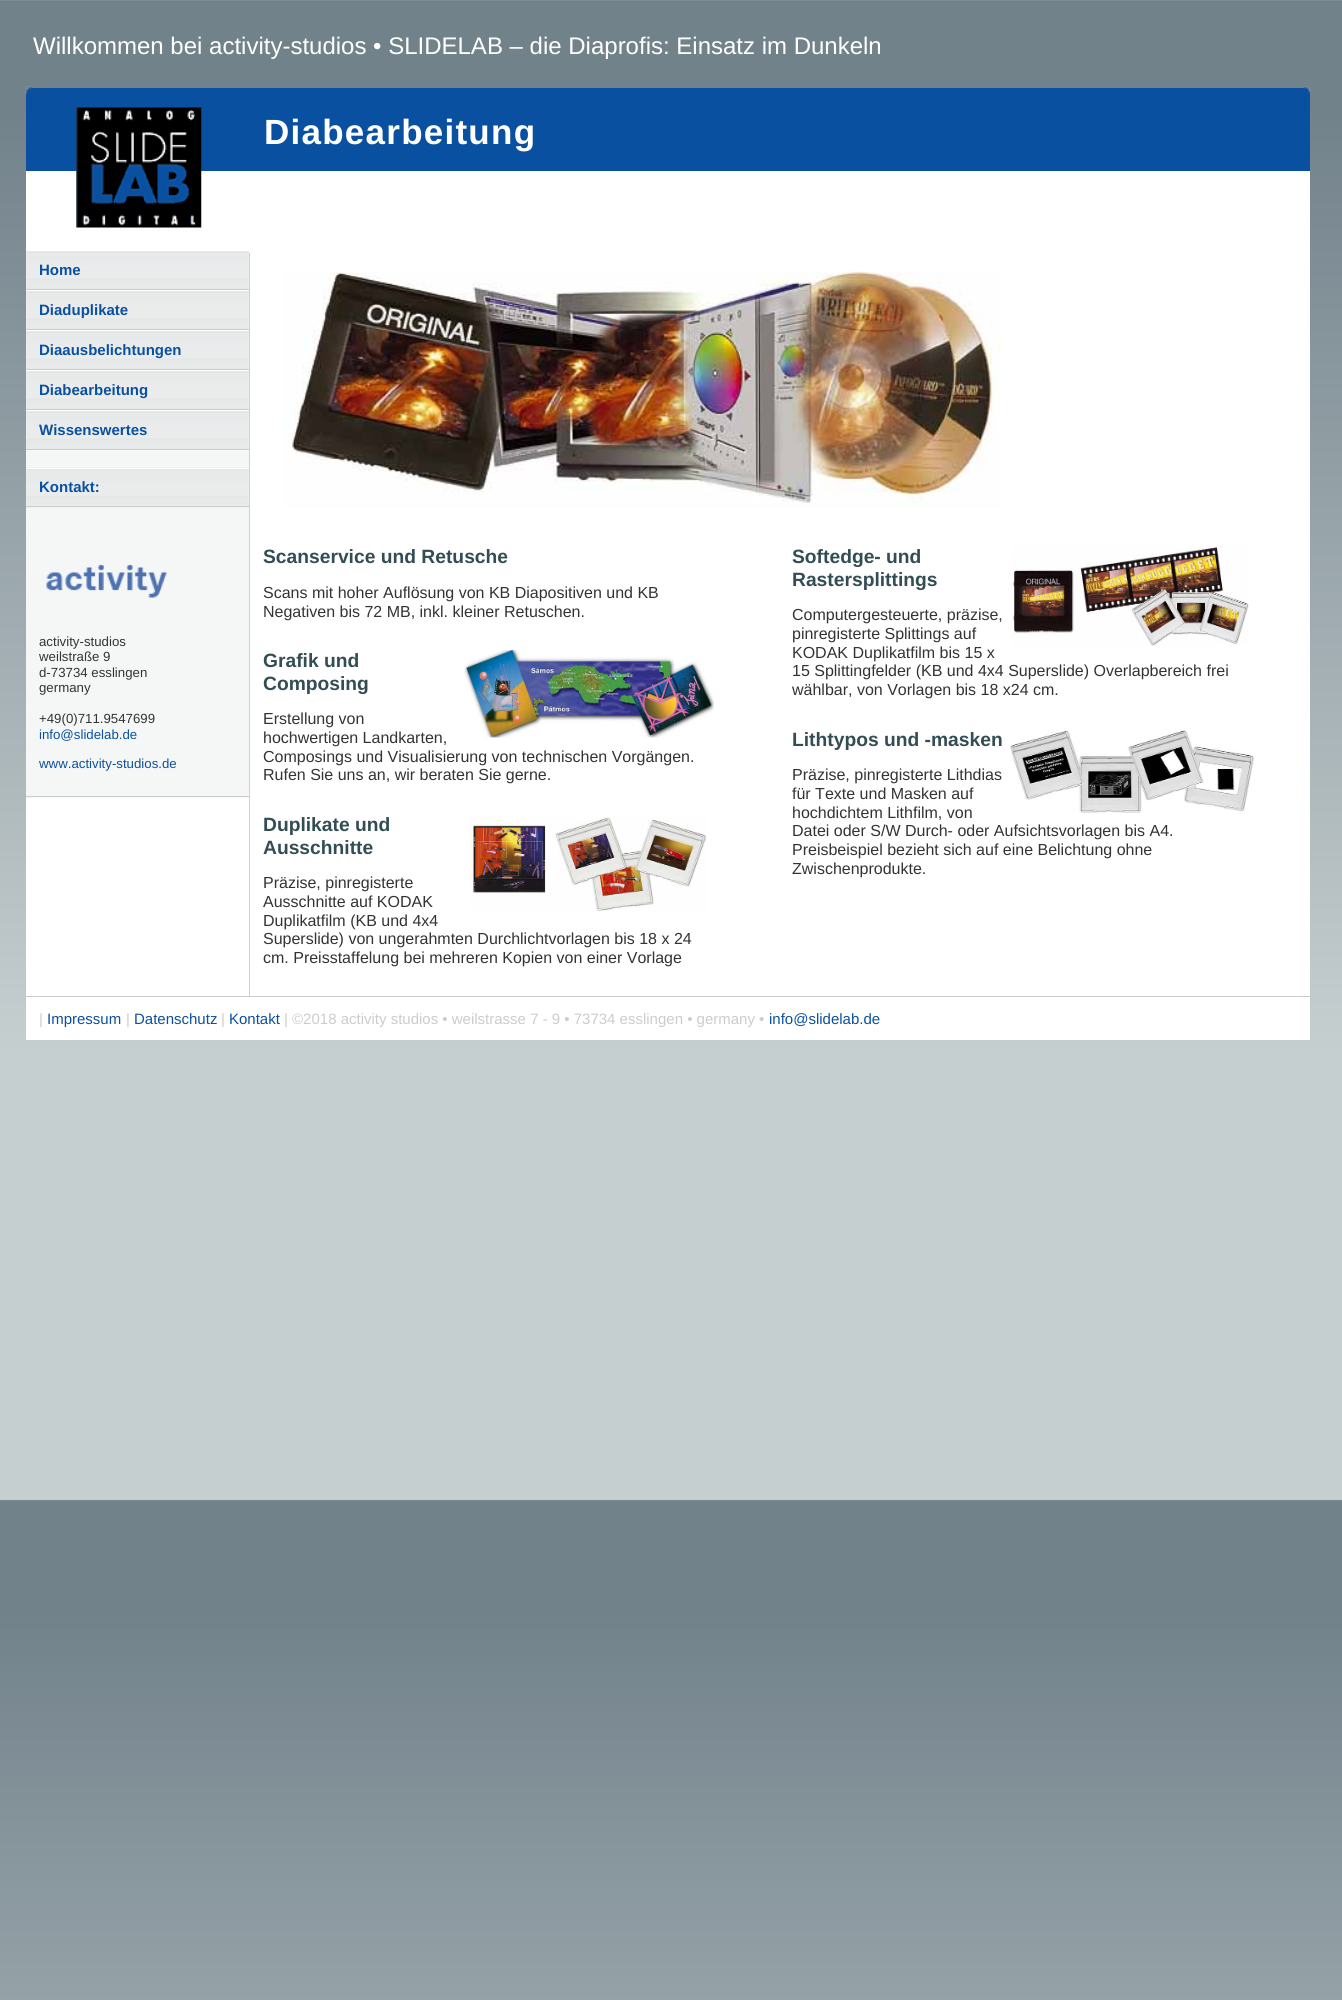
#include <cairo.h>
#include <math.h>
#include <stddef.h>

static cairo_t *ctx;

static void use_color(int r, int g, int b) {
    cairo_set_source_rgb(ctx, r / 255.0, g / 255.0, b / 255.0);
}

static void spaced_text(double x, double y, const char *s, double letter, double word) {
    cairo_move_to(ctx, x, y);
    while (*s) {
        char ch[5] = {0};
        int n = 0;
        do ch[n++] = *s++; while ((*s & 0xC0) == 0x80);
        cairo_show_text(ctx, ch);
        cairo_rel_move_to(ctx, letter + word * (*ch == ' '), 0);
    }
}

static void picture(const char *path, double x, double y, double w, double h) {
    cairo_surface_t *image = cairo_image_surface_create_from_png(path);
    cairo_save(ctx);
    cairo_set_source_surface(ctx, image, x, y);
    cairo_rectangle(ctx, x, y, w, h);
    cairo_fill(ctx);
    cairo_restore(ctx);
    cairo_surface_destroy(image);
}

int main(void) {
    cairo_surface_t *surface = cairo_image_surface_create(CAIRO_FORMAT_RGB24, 1342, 2000);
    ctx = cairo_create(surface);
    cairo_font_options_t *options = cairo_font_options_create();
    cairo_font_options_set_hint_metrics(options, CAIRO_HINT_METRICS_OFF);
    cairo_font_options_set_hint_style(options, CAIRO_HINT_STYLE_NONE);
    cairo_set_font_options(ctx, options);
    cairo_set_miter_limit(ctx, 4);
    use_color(255, 255, 255);
    cairo_paint(ctx);
    picture("img1.png", 0, 0, 1342, 2000);
    cairo_select_font_face(ctx, "Liberation Sans", CAIRO_FONT_SLANT_NORMAL, CAIRO_FONT_WEIGHT_NORMAL);
    cairo_set_font_size(ctx, 24);
    use_color(255, 255, 255);
    cairo_move_to(ctx, 33, 54);
    cairo_show_text(ctx, "Willkommen bei activity-studios • SLIDELAB – die Diaprofis: Einsatz im Dunkeln");
    cairo_rectangle(ctx, 26, 171, 1284, 869);
    cairo_fill(ctx);
    use_color(10, 80, 161);
    cairo_rectangle(ctx, 26, 88, 1284, 83);
    cairo_fill(ctx);
    picture("img2.png", 25, 86, 8, 8);
    picture("img3.png", 1303, 86, 8, 8);
    picture("img4.png", 76, 107, 126, 121);
    cairo_select_font_face(ctx, "Liberation Sans", CAIRO_FONT_SLANT_NORMAL, CAIRO_FONT_WEIGHT_BOLD);
    cairo_set_font_size(ctx, 35);
    use_color(255, 255, 255);
    spaced_text(264, 144, "Diabearbeitung", 1.25, 0);
    use_color(245, 247, 247);
    cairo_rectangle(ctx, 26, 251, 223, 547);
    cairo_fill(ctx);
    use_color(204, 204, 204);
    cairo_rectangle(ctx, 26, 796, 223, 1);
    cairo_fill(ctx);
    picture("img5.png", 26, 251, 223, 38);
    cairo_rectangle(ctx, 26, 289, 223, 1);
    cairo_fill(ctx);
    cairo_set_font_size(ctx, 15);
    use_color(10, 80, 161);
    cairo_move_to(ctx, 39, 275);
    cairo_show_text(ctx, "Home");
    picture("img5.png", 26, 291, 223, 38);
    use_color(255, 255, 255);
    cairo_rectangle(ctx, 26, 290, 223, 1);
    cairo_fill(ctx);
    use_color(204, 204, 204);
    cairo_rectangle(ctx, 26, 329, 223, 1);
    cairo_fill(ctx);
    use_color(10, 80, 161);
    cairo_move_to(ctx, 39, 315);
    cairo_show_text(ctx, "Diaduplikate");
    picture("img5.png", 26, 331, 223, 38);
    use_color(255, 255, 255);
    cairo_rectangle(ctx, 26, 330, 223, 1);
    cairo_fill(ctx);
    use_color(204, 204, 204);
    cairo_rectangle(ctx, 26, 369, 223, 1);
    cairo_fill(ctx);
    use_color(10, 80, 161);
    cairo_move_to(ctx, 39, 355);
    cairo_show_text(ctx, "Diaausbelichtungen");
    picture("img5.png", 26, 371, 223, 38);
    use_color(255, 255, 255);
    cairo_rectangle(ctx, 26, 370, 223, 1);
    cairo_fill(ctx);
    use_color(204, 204, 204);
    cairo_rectangle(ctx, 26, 409, 223, 1);
    cairo_fill(ctx);
    use_color(10, 80, 161);
    cairo_move_to(ctx, 39, 395);
    cairo_show_text(ctx, "Diabearbeitung");
    picture("img5.png", 26, 411, 223, 38);
    use_color(255, 255, 255);
    cairo_rectangle(ctx, 26, 410, 223, 1);
    cairo_fill(ctx);
    use_color(204, 204, 204);
    cairo_rectangle(ctx, 26, 449, 223, 1);
    cairo_fill(ctx);
    use_color(10, 80, 161);
    cairo_move_to(ctx, 39, 435);
    cairo_show_text(ctx, "Wissenswertes");
    picture("img6.png", 26, 467, 223, 41);
    use_color(255, 255, 255);
    cairo_rectangle(ctx, 26, 468, 223, 1);
    cairo_fill(ctx);
    use_color(204, 204, 204);
    cairo_rectangle(ctx, 26, 506, 223, 1);
    cairo_fill(ctx);
    use_color(10, 80, 161);
    cairo_move_to(ctx, 39, 492);
    cairo_show_text(ctx, "Kontakt:");
    picture("img7.png", 46, 564, 122, 34);
    cairo_select_font_face(ctx, "Liberation Sans", CAIRO_FONT_SLANT_NORMAL, CAIRO_FONT_WEIGHT_NORMAL);
    cairo_set_font_size(ctx, 13.25);
    use_color(51, 51, 51);
    cairo_move_to(ctx, 39, 646);
    cairo_show_text(ctx, "activity-studios");
    cairo_move_to(ctx, 39, 661);
    cairo_show_text(ctx, "weilstraße 9");
    cairo_move_to(ctx, 39, 677);
    cairo_show_text(ctx, "d-73734 esslingen");
    cairo_move_to(ctx, 39, 692);
    cairo_show_text(ctx, "germany");
    cairo_move_to(ctx, 39, 723);
    cairo_show_text(ctx, "+49(0)711.9547699");
    use_color(10, 80, 161);
    cairo_move_to(ctx, 39, 739);
    cairo_show_text(ctx, "info@slidelab.de");
    cairo_move_to(ctx, 39, 768);
    cairo_show_text(ctx, "www.activity-studios.de");
    use_color(204, 210, 210);
    cairo_rectangle(ctx, 249, 253, 1, 743);
    cairo_fill(ctx);
    picture("img8.png", 283, 271, 717, 238);
    cairo_select_font_face(ctx, "Liberation Sans", CAIRO_FONT_SLANT_NORMAL, CAIRO_FONT_WEIGHT_BOLD);
    cairo_set_font_size(ctx, 19.25);
    use_color(51, 77, 85);
    cairo_move_to(ctx, 263, 563);
    cairo_show_text(ctx, "Scanservice und Retusche");
    cairo_select_font_face(ctx, "Liberation Sans", CAIRO_FONT_SLANT_NORMAL, CAIRO_FONT_WEIGHT_NORMAL);
    cairo_set_font_size(ctx, 16);
    use_color(51, 51, 51);
    cairo_move_to(ctx, 263, 598);
    cairo_show_text(ctx, "Scans mit hoher Auflösung von KB Diapositiven und KB");
    cairo_move_to(ctx, 263, 617);
    cairo_show_text(ctx, "Negativen bis 72 MB, inkl. kleiner Retuschen.");
    cairo_select_font_face(ctx, "Liberation Sans", CAIRO_FONT_SLANT_NORMAL, CAIRO_FONT_WEIGHT_BOLD);
    cairo_set_font_size(ctx, 19.25);
    use_color(51, 77, 85);
    cairo_move_to(ctx, 263, 667);
    cairo_show_text(ctx, "Grafik und");
    picture("img9.png", 463, 650, 251, 88);
    cairo_move_to(ctx, 263, 690);
    cairo_show_text(ctx, "Composing");
    cairo_select_font_face(ctx, "Liberation Sans", CAIRO_FONT_SLANT_NORMAL, CAIRO_FONT_WEIGHT_NORMAL);
    cairo_set_font_size(ctx, 16);
    use_color(51, 51, 51);
    cairo_move_to(ctx, 263, 724);
    cairo_show_text(ctx, "Erstellung von");
    cairo_move_to(ctx, 263, 743);
    cairo_show_text(ctx, "hochwertigen Landkarten,");
    cairo_move_to(ctx, 263, 762);
    cairo_show_text(ctx, "Composings und Visualisierung von technischen Vorgängen.");
    cairo_move_to(ctx, 263, 780);
    cairo_show_text(ctx, "Rufen Sie uns an, wir beraten Sie gerne.");
    cairo_select_font_face(ctx, "Liberation Sans", CAIRO_FONT_SLANT_NORMAL, CAIRO_FONT_WEIGHT_BOLD);
    cairo_set_font_size(ctx, 19.25);
    use_color(51, 77, 85);
    cairo_move_to(ctx, 263, 831);
    cairo_show_text(ctx, "Duplikate und");
    picture("img10.png", 470, 817, 237, 94);
    cairo_move_to(ctx, 263, 854);
    cairo_show_text(ctx, "Ausschnitte");
    cairo_select_font_face(ctx, "Liberation Sans", CAIRO_FONT_SLANT_NORMAL, CAIRO_FONT_WEIGHT_NORMAL);
    cairo_set_font_size(ctx, 16);
    use_color(51, 51, 51);
    cairo_move_to(ctx, 263, 888);
    cairo_show_text(ctx, "Präzise, pinregisterte");
    cairo_move_to(ctx, 263, 907);
    cairo_show_text(ctx, "Ausschnitte auf KODAK");
    cairo_move_to(ctx, 263, 926);
    cairo_show_text(ctx, "Duplikatfilm (KB und 4x4");
    cairo_move_to(ctx, 263, 944);
    cairo_show_text(ctx, "Superslide) von ungerahmten Durchlichtvorlagen bis 18 x 24");
    cairo_move_to(ctx, 263, 963);
    cairo_show_text(ctx, "cm. Preisstaffelung bei mehreren Kopien von einer Vorlage");
    cairo_select_font_face(ctx, "Liberation Sans", CAIRO_FONT_SLANT_NORMAL, CAIRO_FONT_WEIGHT_BOLD);
    cairo_set_font_size(ctx, 19.25);
    use_color(51, 77, 85);
    cairo_move_to(ctx, 792, 563);
    cairo_show_text(ctx, "Softedge- und");
    picture("img11.png", 1011, 546, 238, 100);
    cairo_move_to(ctx, 792, 586);
    cairo_show_text(ctx, "Rastersplittings");
    cairo_select_font_face(ctx, "Liberation Sans", CAIRO_FONT_SLANT_NORMAL, CAIRO_FONT_WEIGHT_NORMAL);
    cairo_set_font_size(ctx, 16);
    use_color(51, 51, 51);
    cairo_move_to(ctx, 792, 620);
    cairo_show_text(ctx, "Computergesteuerte, präzise,");
    cairo_move_to(ctx, 792, 639);
    cairo_show_text(ctx, "pinregisterte Splittings auf");
    cairo_move_to(ctx, 792, 658);
    cairo_show_text(ctx, "KODAK Duplikatfilm bis 15 x");
    cairo_move_to(ctx, 792, 676);
    cairo_show_text(ctx, "15 Splittingfelder (KB und 4x4 Superslide) Overlapbereich frei");
    cairo_move_to(ctx, 792, 695);
    cairo_show_text(ctx, "wählbar, von Vorlagen bis 18 x24 cm.");
    cairo_select_font_face(ctx, "Liberation Sans", CAIRO_FONT_SLANT_NORMAL, CAIRO_FONT_WEIGHT_BOLD);
    cairo_set_font_size(ctx, 19.25);
    use_color(51, 77, 85);
    cairo_move_to(ctx, 792, 746);
    cairo_show_text(ctx, "Lithtypos und -masken");
    picture("img12.png", 1010, 730, 244, 83);
    cairo_select_font_face(ctx, "Liberation Sans", CAIRO_FONT_SLANT_NORMAL, CAIRO_FONT_WEIGHT_NORMAL);
    cairo_set_font_size(ctx, 16);
    use_color(51, 51, 51);
    cairo_move_to(ctx, 792, 780);
    cairo_show_text(ctx, "Präzise, pinregisterte Lithdias");
    cairo_move_to(ctx, 792, 799);
    cairo_show_text(ctx, "für Texte und Masken auf");
    cairo_move_to(ctx, 792, 818);
    cairo_show_text(ctx, "hochdichtem Lithfilm, von");
    cairo_move_to(ctx, 792, 836);
    cairo_show_text(ctx, "Datei oder S/W Durch- oder Aufsichtsvorlagen bis A4.");
    cairo_move_to(ctx, 792, 855);
    cairo_show_text(ctx, "Preisbeispiel bezieht sich auf eine Belichtung ohne");
    cairo_move_to(ctx, 792, 874);
    cairo_show_text(ctx, "Zwischenprodukte.");
    use_color(204, 204, 204);
    cairo_rectangle(ctx, 26, 996, 1284, 1);
    cairo_fill(ctx);
    cairo_set_font_size(ctx, 15);
    cairo_move_to(ctx, 39, 1024);
    cairo_show_text(ctx, "|");
    use_color(10, 80, 161);
    cairo_move_to(ctx, 47, 1024);
    cairo_show_text(ctx, "Impressum");
    use_color(204, 204, 204);
    cairo_move_to(ctx, 126, 1024);
    cairo_show_text(ctx, "|");
    use_color(10, 80, 161);
    cairo_move_to(ctx, 134, 1024);
    cairo_show_text(ctx, "Datenschutz");
    use_color(204, 204, 204);
    cairo_move_to(ctx, 221, 1024);
    cairo_show_text(ctx, "|");
    use_color(10, 80, 161);
    cairo_move_to(ctx, 229, 1024);
    cairo_show_text(ctx, "Kontakt");
    use_color(204, 204, 204);
    cairo_move_to(ctx, 284, 1024);
    cairo_show_text(ctx, "| ©2018 activity studios • weilstrasse 7 - 9 • 73734 esslingen • germany •");
    use_color(10, 80, 161);
    cairo_move_to(ctx, 769, 1024);
    cairo_show_text(ctx, "info@slidelab.de");
    cairo_surface_write_to_png(surface, "result.png");
    cairo_font_options_destroy(options);
    cairo_destroy(ctx);
    cairo_surface_destroy(surface);
    return 0;
}
